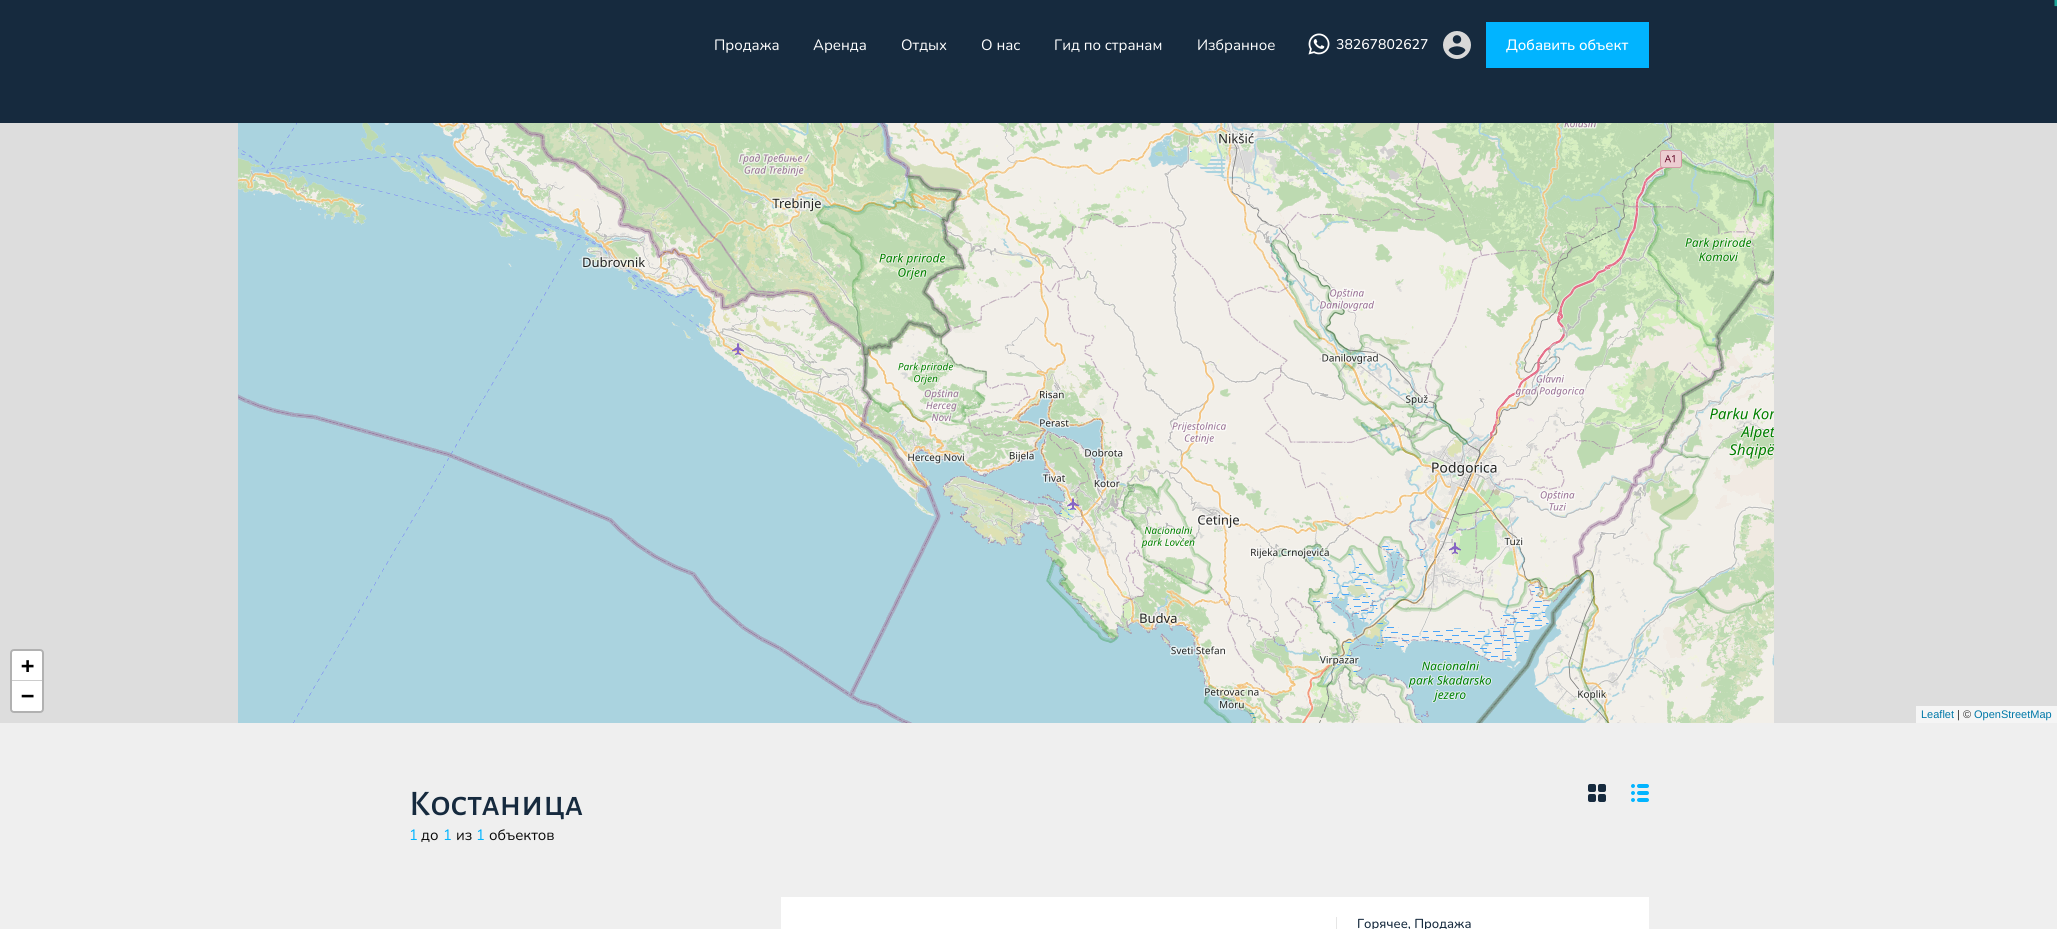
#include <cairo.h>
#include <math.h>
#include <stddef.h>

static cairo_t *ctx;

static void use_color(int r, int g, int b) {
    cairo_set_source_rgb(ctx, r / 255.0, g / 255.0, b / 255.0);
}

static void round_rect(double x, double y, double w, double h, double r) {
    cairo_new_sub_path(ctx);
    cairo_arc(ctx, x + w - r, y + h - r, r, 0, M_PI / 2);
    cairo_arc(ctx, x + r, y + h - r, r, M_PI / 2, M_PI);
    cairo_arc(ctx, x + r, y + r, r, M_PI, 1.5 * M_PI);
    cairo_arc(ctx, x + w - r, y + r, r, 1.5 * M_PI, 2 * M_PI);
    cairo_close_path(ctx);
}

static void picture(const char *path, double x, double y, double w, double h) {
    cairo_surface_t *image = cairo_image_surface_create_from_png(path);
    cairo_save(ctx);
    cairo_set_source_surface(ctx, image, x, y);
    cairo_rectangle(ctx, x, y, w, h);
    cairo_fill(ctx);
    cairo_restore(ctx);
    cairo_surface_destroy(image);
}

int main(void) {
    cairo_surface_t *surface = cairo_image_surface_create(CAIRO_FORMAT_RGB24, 2057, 929);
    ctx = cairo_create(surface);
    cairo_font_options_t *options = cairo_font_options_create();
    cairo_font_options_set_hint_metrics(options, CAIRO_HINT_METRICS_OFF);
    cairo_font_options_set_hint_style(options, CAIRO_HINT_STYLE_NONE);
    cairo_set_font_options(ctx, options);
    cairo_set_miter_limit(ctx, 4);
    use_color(239, 239, 239);
    cairo_paint(ctx);
    use_color(22, 42, 62);
    cairo_rectangle(ctx, 0, 0, 2057, 123);
    cairo_fill(ctx);
    cairo_new_path(ctx);
    cairo_move_to(ctx, 2054.5, 3);
    cairo_line_to(ctx, 2057, 3);
    use_color(30, 166, 154);
    cairo_set_line_width(ctx, 6.2);
    cairo_stroke(ctx);
    cairo_select_font_face(ctx, "Nunito", CAIRO_FONT_SLANT_NORMAL, CAIRO_FONT_WEIGHT_NORMAL);
    cairo_set_font_size(ctx, 15);
    use_color(255, 255, 255);
    cairo_move_to(ctx, 714, 50);
    cairo_show_text(ctx, "Продажа");
    cairo_move_to(ctx, 813, 50);
    cairo_show_text(ctx, "Аренда");
    cairo_move_to(ctx, 901, 50);
    cairo_show_text(ctx, "Отдых");
    cairo_move_to(ctx, 981, 50);
    cairo_show_text(ctx, "О нас");
    cairo_move_to(ctx, 1054, 50);
    cairo_show_text(ctx, "Гид по странам");
    cairo_move_to(ctx, 1197, 50);
    cairo_show_text(ctx, "Избранное");
    picture("img1.png", 1308, 33, 22, 22);
    cairo_select_font_face(ctx, "Nunito Medium", CAIRO_FONT_SLANT_NORMAL, CAIRO_FONT_WEIGHT_NORMAL);
    cairo_set_font_size(ctx, 14);
    cairo_move_to(ctx, 1336, 49);
    cairo_show_text(ctx, "38267802627");
    picture("img2.png", 1443, 31, 28, 28);
    use_color(1, 180, 255);
    cairo_rectangle(ctx, 1486, 22, 163, 46);
    cairo_fill(ctx);
    cairo_set_font_size(ctx, 15);
    use_color(255, 255, 255);
    cairo_move_to(ctx, 1506, 50);
    cairo_show_text(ctx, "Добавить объект");
    use_color(221, 221, 221);
    cairo_rectangle(ctx, 0, 123, 2057, 600);
    cairo_fill(ctx);
    picture("img3.png", 238, 123, 256, 234);
    picture("img4.png", 494, 123, 256, 234);
    picture("img5.png", 750, 123, 256, 234);
    picture("img6.png", 1006, 123, 256, 234);
    picture("img7.png", 1262, 123, 256, 234);
    picture("img8.png", 1518, 123, 256, 234);
    picture("img9.png", 238, 357, 256, 256);
    picture("img10.png", 494, 357, 256, 256);
    picture("img11.png", 750, 357, 256, 256);
    picture("img12.png", 1006, 357, 256, 256);
    picture("img13.png", 1262, 357, 256, 256);
    picture("img14.png", 1518, 357, 256, 256);
    picture("img15.png", 238, 613, 256, 110);
    picture("img16.png", 494, 613, 256, 110);
    picture("img17.png", 750, 613, 256, 110);
    picture("img18.png", 1006, 613, 256, 110);
    picture("img19.png", 1262, 613, 256, 110);
    picture("img20.png", 1518, 613, 256, 110);
    round_rect(11, 650, 32, 62, 3);
    use_color(177, 177, 177);
    cairo_set_line_width(ctx, 2);
    cairo_stroke(ctx);
    use_color(255, 255, 255);
    cairo_new_path(ctx);
    cairo_move_to(ctx, 14, 651);
    cairo_line_to(ctx, 40, 651);
    cairo_curve_to(ctx, 41, 651, 42, 652, 42, 653);
    cairo_line_to(ctx, 42, 680);
    cairo_line_to(ctx, 12, 680);
    cairo_line_to(ctx, 12, 653);
    cairo_curve_to(ctx, 12, 652, 13, 651, 14, 651);
    cairo_close_path(ctx);
    cairo_fill(ctx);
    use_color(204, 204, 204);
    cairo_rectangle(ctx, 12, 680, 30, 1);
    cairo_fill(ctx);
    cairo_select_font_face(ctx, "DejaVu Sans Mono", CAIRO_FONT_SLANT_NORMAL, CAIRO_FONT_WEIGHT_BOLD);
    cairo_set_font_size(ctx, 22);
    use_color(0, 0, 0);
    cairo_move_to(ctx, 21, 673);
    cairo_show_text(ctx, "+");
    use_color(255, 255, 255);
    cairo_new_path(ctx);
    cairo_move_to(ctx, 12, 681);
    cairo_line_to(ctx, 42, 681);
    cairo_line_to(ctx, 42, 709);
    cairo_curve_to(ctx, 42, 710, 41, 711, 40, 711);
    cairo_line_to(ctx, 14, 711);
    cairo_curve_to(ctx, 13, 711, 12, 710, 12, 709);
    cairo_close_path(ctx);
    cairo_fill(ctx);
    use_color(0, 0, 0);
    cairo_move_to(ctx, 21, 703);
    cairo_show_text(ctx, "−");
    use_color(245, 245, 245);
    cairo_rectangle(ctx, 1916, 706, 141, 17);
    cairo_fill(ctx);
    cairo_select_font_face(ctx, "Liberation Sans", CAIRO_FONT_SLANT_NORMAL, CAIRO_FONT_WEIGHT_NORMAL);
    cairo_set_font_size(ctx, 11);
    use_color(0, 120, 168);
    cairo_move_to(ctx, 1921, 718);
    cairo_show_text(ctx, "Leaflet");
    use_color(51, 51, 51);
    cairo_move_to(ctx, 1957, 718);
    cairo_show_text(ctx, "| ©");
    use_color(0, 120, 168);
    cairo_move_to(ctx, 1974, 718);
    cairo_show_text(ctx, "OpenStreetMap");
    cairo_select_font_face(ctx, "Alegreya Sans SC Medium", CAIRO_FONT_SLANT_NORMAL, CAIRO_FONT_WEIGHT_NORMAL);
    cairo_set_font_size(ctx, 36);
    use_color(22, 42, 62);
    cairo_move_to(ctx, 409, 815);
    cairo_show_text(ctx, "Костаница");
    cairo_select_font_face(ctx, "Nunito", CAIRO_FONT_SLANT_NORMAL, CAIRO_FONT_WEIGHT_NORMAL);
    cairo_set_font_size(ctx, 15);
    use_color(1, 180, 255);
    cairo_move_to(ctx, 409, 840);
    cairo_show_text(ctx, "1");
    use_color(10, 10, 10);
    cairo_move_to(ctx, 421, 840);
    cairo_show_text(ctx, "до");
    use_color(1, 180, 255);
    cairo_move_to(ctx, 443, 840);
    cairo_show_text(ctx, "1");
    use_color(10, 10, 10);
    cairo_move_to(ctx, 456, 840);
    cairo_show_text(ctx, "из");
    use_color(1, 180, 255);
    cairo_move_to(ctx, 476, 840);
    cairo_show_text(ctx, "1");
    use_color(10, 10, 10);
    cairo_move_to(ctx, 489, 840);
    cairo_show_text(ctx, "объектов");
    picture("img21.png", 1588, 784, 18, 18);
    picture("img22.png", 1631, 784, 18, 18);
    use_color(255, 255, 255);
    cairo_rectangle(ctx, 781, 897, 868, 32);
    cairo_fill(ctx);
    use_color(230, 230, 230);
    cairo_rectangle(ctx, 1336, 917, 1, 12);
    cairo_fill(ctx);
    cairo_select_font_face(ctx, "Nunito Medium", CAIRO_FONT_SLANT_NORMAL, CAIRO_FONT_WEIGHT_NORMAL);
    cairo_set_font_size(ctx, 13);
    use_color(22, 42, 62);
    cairo_move_to(ctx, 1357, 928);
    cairo_show_text(ctx, "Горячее, Продажа");
    cairo_surface_write_to_png(surface, "result.png");
    cairo_font_options_destroy(options);
    cairo_destroy(ctx);
    cairo_surface_destroy(surface);
    return 0;
}
